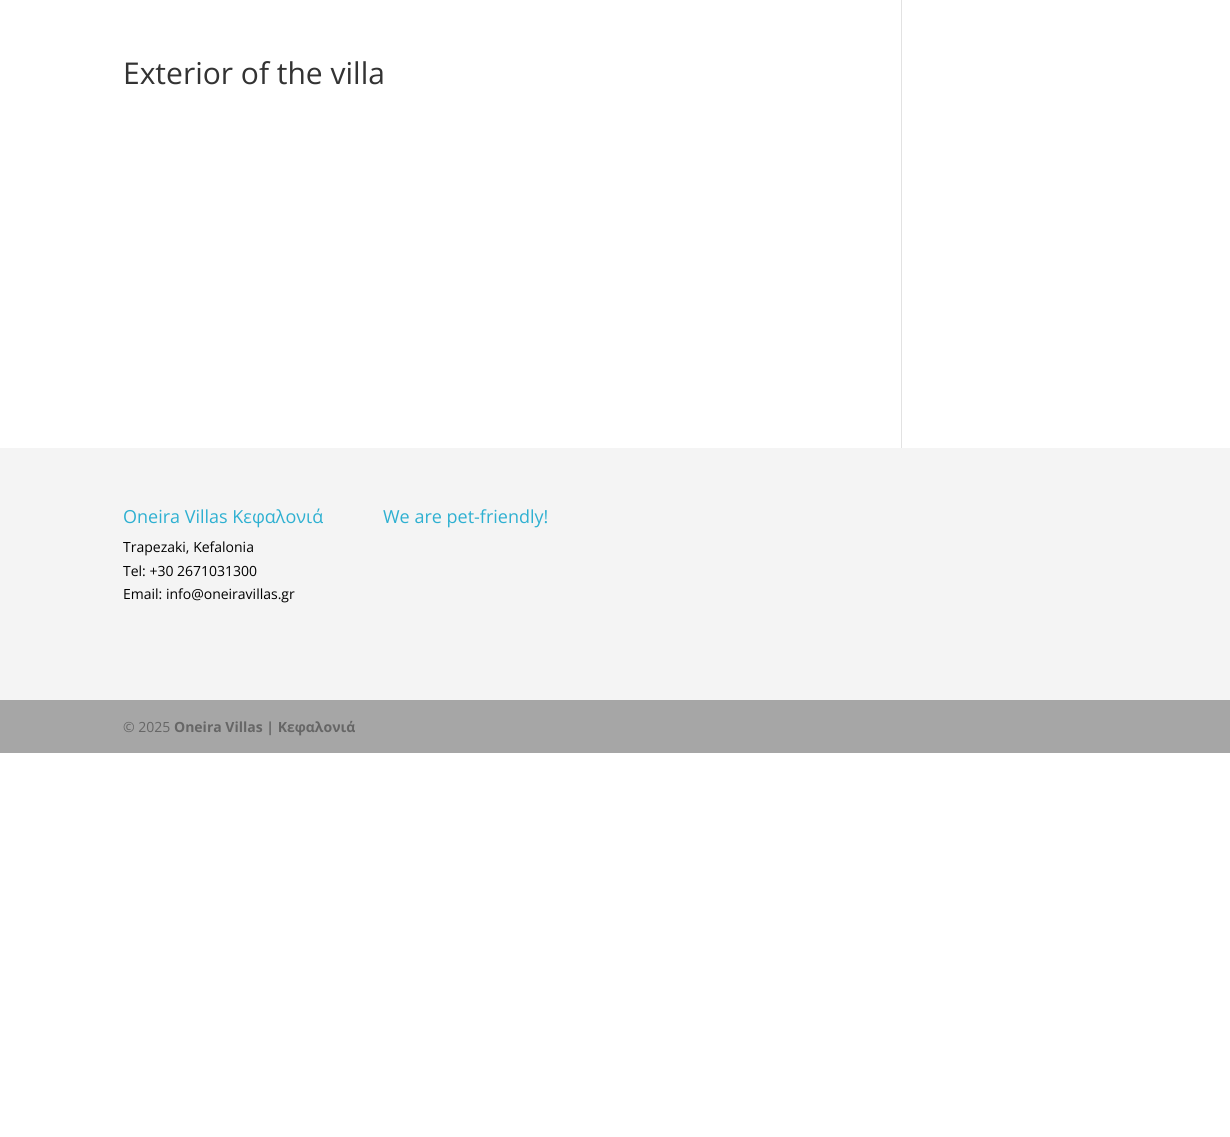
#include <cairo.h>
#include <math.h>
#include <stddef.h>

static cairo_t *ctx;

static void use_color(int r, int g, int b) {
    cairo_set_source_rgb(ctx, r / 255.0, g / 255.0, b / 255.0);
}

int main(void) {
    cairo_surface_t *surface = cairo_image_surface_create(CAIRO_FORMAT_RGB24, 1230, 1137);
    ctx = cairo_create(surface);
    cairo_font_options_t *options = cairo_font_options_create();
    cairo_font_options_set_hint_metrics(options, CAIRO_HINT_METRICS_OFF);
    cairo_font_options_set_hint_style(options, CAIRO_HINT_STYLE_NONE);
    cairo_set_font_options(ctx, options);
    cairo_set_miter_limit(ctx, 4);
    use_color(255, 255, 255);
    cairo_paint(ctx);
    cairo_select_font_face(ctx, "Open Sans", CAIRO_FONT_SLANT_NORMAL, CAIRO_FONT_WEIGHT_NORMAL);
    cairo_set_font_size(ctx, 30);
    use_color(51, 51, 51);
    cairo_move_to(ctx, 123, 84);
    cairo_show_text(ctx, "Exterior of the villa");
    use_color(226, 226, 226);
    cairo_rectangle(ctx, 901, 0, 1, 448);
    cairo_fill(ctx);
    use_color(244, 244, 244);
    cairo_rectangle(ctx, 0, 448, 1230, 252);
    cairo_fill(ctx);
    cairo_set_font_size(ctx, 18);
    use_color(46, 176, 209);
    cairo_move_to(ctx, 123, 523);
    cairo_show_text(ctx, "Oneira Villas Κεφαλονιά");
    cairo_set_font_size(ctx, 14);
    use_color(0, 0, 0);
    cairo_move_to(ctx, 123, 552);
    cairo_show_text(ctx, "Trapezaki, Kefalonia");
    cairo_move_to(ctx, 123, 576);
    cairo_show_text(ctx, "Tel: +30 2671031300");
    cairo_move_to(ctx, 123, 599);
    cairo_show_text(ctx, "Email: info@oneiravillas.gr");
    cairo_set_font_size(ctx, 18);
    use_color(46, 176, 209);
    cairo_move_to(ctx, 383, 523);
    cairo_show_text(ctx, "We are pet-friendly!");
    use_color(166, 166, 166);
    cairo_rectangle(ctx, 0, 700, 1230, 53);
    cairo_fill(ctx);
    cairo_set_font_size(ctx, 14);
    use_color(102, 102, 102);
    cairo_move_to(ctx, 123, 732);
    cairo_show_text(ctx, "© 2025");
    cairo_select_font_face(ctx, "Open Sans", CAIRO_FONT_SLANT_NORMAL, CAIRO_FONT_WEIGHT_BOLD);
    cairo_move_to(ctx, 174, 732);
    cairo_show_text(ctx, "Oneira Villas | Κεφαλονιά");
    cairo_surface_write_to_png(surface, "result.png");
    cairo_font_options_destroy(options);
    cairo_destroy(ctx);
    cairo_surface_destroy(surface);
    return 0;
}
